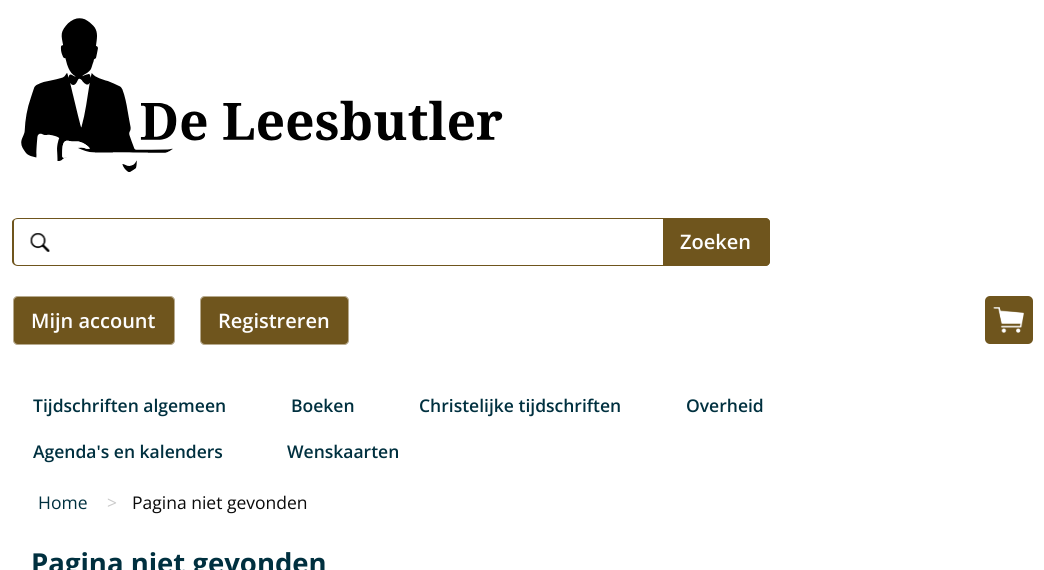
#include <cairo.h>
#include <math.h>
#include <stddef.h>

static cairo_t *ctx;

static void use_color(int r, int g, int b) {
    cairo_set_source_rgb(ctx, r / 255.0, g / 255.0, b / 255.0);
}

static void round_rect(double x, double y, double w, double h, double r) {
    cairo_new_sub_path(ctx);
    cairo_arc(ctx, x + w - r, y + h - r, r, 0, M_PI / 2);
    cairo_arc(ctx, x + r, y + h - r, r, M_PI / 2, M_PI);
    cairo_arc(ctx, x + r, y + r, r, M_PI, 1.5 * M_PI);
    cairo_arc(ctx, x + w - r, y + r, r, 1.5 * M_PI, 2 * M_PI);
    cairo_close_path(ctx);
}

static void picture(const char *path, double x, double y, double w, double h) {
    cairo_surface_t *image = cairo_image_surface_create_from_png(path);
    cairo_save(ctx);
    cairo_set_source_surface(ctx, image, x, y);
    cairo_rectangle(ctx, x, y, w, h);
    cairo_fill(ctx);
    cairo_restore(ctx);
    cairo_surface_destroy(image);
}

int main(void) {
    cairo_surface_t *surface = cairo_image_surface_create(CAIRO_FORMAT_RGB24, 1044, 570);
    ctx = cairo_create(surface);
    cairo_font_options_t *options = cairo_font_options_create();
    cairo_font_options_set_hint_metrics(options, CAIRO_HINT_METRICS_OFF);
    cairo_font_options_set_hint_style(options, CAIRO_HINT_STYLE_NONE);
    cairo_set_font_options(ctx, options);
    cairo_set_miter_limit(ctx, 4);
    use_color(255, 255, 255);
    cairo_paint(ctx);
    picture("img1.png", 21, 18, 482, 154);
    picture("img2.png", 30, 233, 20, 19);
    use_color(111, 85, 29);
    cairo_set_fill_rule(ctx, CAIRO_FILL_RULE_EVEN_ODD);
    cairo_new_path(ctx);
    cairo_move_to(ctx, 18, 218);
    cairo_line_to(ctx, 662, 218);
    cairo_line_to(ctx, 662, 266);
    cairo_line_to(ctx, 18, 266);
    cairo_curve_to(ctx, 15, 266, 12, 264, 12, 261);
    cairo_line_to(ctx, 12, 222);
    cairo_curve_to(ctx, 12, 220, 15, 218, 18, 218);
    cairo_close_path(ctx);
    cairo_move_to(ctx, 18, 219);
    cairo_line_to(ctx, 662, 219);
    cairo_line_to(ctx, 662, 265);
    cairo_line_to(ctx, 18, 265);
    cairo_curve_to(ctx, 15, 265, 14, 263, 14, 261);
    cairo_line_to(ctx, 14, 222);
    cairo_curve_to(ctx, 14, 220, 15, 219, 18, 219);
    cairo_close_path(ctx);
    cairo_fill(ctx);
    cairo_new_path(ctx);
    cairo_move_to(ctx, 663, 218);
    cairo_line_to(ctx, 765, 218);
    cairo_curve_to(ctx, 768, 218, 770, 220, 770, 223);
    cairo_line_to(ctx, 770, 261);
    cairo_curve_to(ctx, 770, 264, 768, 266, 765, 266);
    cairo_line_to(ctx, 663, 266);
    cairo_close_path(ctx);
    cairo_fill(ctx);
    cairo_new_path(ctx);
    cairo_move_to(ctx, 662, 218);
    cairo_line_to(ctx, 765, 218);
    cairo_curve_to(ctx, 768, 218, 770, 220, 770, 222);
    cairo_line_to(ctx, 770, 261);
    cairo_curve_to(ctx, 770, 264, 768, 266, 765, 266);
    cairo_line_to(ctx, 662, 266);
    cairo_close_path(ctx);
    cairo_move_to(ctx, 662, 219);
    cairo_line_to(ctx, 765, 219);
    cairo_curve_to(ctx, 767, 219, 769, 220, 769, 222);
    cairo_line_to(ctx, 769, 261);
    cairo_curve_to(ctx, 769, 263, 767, 265, 765, 265);
    cairo_line_to(ctx, 662, 265);
    cairo_close_path(ctx);
    cairo_fill(ctx);
    cairo_select_font_face(ctx, "Open Sans SemiBold", CAIRO_FONT_SLANT_NORMAL, CAIRO_FONT_WEIGHT_NORMAL);
    cairo_set_font_size(ctx, 20);
    use_color(254, 254, 254);
    cairo_move_to(ctx, 680, 249);
    cairo_show_text(ctx, "Zoeken");
    use_color(111, 85, 29);
    round_rect(13, 296, 162, 49, 5);
    cairo_fill(ctx);
    round_rect(13.5, 296.5, 161, 48, 4.5);
    cairo_set_source_rgba(ctx, 1, 1, 1, 0.5);
    cairo_set_line_width(ctx, 1);
    cairo_stroke(ctx);
    use_color(254, 254, 254);
    cairo_move_to(ctx, 31, 328);
    cairo_show_text(ctx, "Mijn account");
    use_color(111, 85, 29);
    round_rect(200, 296, 149, 49, 5);
    cairo_fill(ctx);
    round_rect(200.5, 296.5, 148, 48, 4.5);
    cairo_set_source_rgba(ctx, 1, 1, 1, 0.5);
    cairo_stroke(ctx);
    use_color(254, 254, 254);
    cairo_move_to(ctx, 218, 328);
    cairo_show_text(ctx, "Registreren");
    use_color(111, 85, 29);
    round_rect(985, 296, 48, 48, 5);
    cairo_fill(ctx);
    picture("img3.png", 993, 307, 31, 26);
    cairo_set_font_size(ctx, 17.5);
    use_color(0, 48, 63);
    cairo_move_to(ctx, 33, 412);
    cairo_show_text(ctx, "Tijdschriften algemeen");
    cairo_move_to(ctx, 291, 412);
    cairo_show_text(ctx, "Boeken");
    cairo_move_to(ctx, 419, 412);
    cairo_show_text(ctx, "Christelijke tijdschriften");
    cairo_move_to(ctx, 686, 412);
    cairo_show_text(ctx, "Overheid");
    cairo_move_to(ctx, 33, 458);
    cairo_show_text(ctx, "Agenda's en kalenders");
    cairo_move_to(ctx, 287, 458);
    cairo_show_text(ctx, "Wenskaarten");
    cairo_select_font_face(ctx, "Open Sans", CAIRO_FONT_SLANT_NORMAL, CAIRO_FONT_WEIGHT_NORMAL);
    cairo_move_to(ctx, 38, 509);
    cairo_show_text(ctx, "Home");
    use_color(202, 202, 202);
    cairo_move_to(ctx, 107, 509);
    cairo_show_text(ctx, ">");
    use_color(10, 10, 10);
    cairo_move_to(ctx, 132, 509);
    cairo_show_text(ctx, "Pagina niet gevonden");
    cairo_select_font_face(ctx, "Open Sans", CAIRO_FONT_SLANT_NORMAL, CAIRO_FONT_WEIGHT_BOLD);
    cairo_set_font_size(ctx, 27.5);
    use_color(0, 48, 63);
    cairo_move_to(ctx, 31, 573);
    cairo_show_text(ctx, "Pagina niet gevonden");
    cairo_surface_write_to_png(surface, "result.png");
    cairo_font_options_destroy(options);
    cairo_destroy(ctx);
    cairo_surface_destroy(surface);
    return 0;
}
